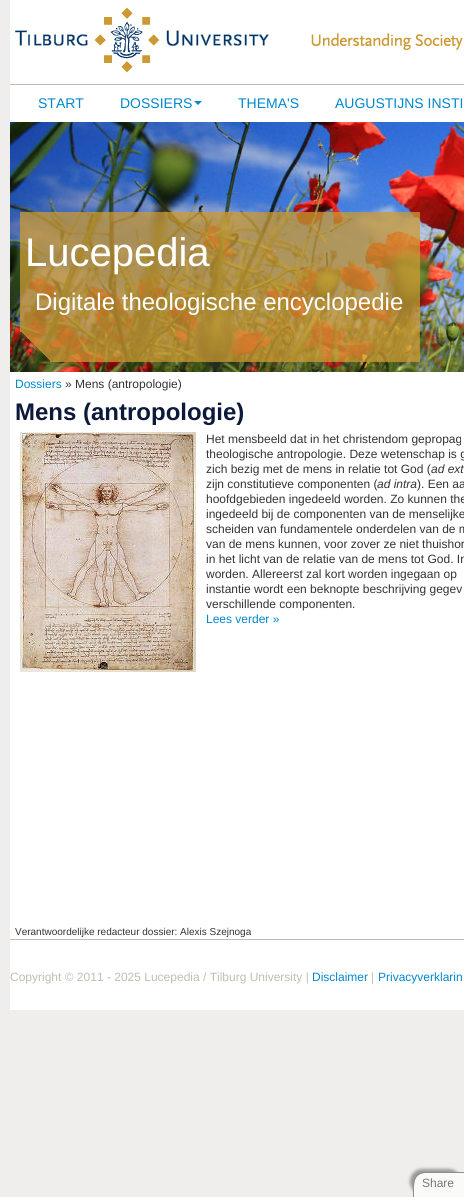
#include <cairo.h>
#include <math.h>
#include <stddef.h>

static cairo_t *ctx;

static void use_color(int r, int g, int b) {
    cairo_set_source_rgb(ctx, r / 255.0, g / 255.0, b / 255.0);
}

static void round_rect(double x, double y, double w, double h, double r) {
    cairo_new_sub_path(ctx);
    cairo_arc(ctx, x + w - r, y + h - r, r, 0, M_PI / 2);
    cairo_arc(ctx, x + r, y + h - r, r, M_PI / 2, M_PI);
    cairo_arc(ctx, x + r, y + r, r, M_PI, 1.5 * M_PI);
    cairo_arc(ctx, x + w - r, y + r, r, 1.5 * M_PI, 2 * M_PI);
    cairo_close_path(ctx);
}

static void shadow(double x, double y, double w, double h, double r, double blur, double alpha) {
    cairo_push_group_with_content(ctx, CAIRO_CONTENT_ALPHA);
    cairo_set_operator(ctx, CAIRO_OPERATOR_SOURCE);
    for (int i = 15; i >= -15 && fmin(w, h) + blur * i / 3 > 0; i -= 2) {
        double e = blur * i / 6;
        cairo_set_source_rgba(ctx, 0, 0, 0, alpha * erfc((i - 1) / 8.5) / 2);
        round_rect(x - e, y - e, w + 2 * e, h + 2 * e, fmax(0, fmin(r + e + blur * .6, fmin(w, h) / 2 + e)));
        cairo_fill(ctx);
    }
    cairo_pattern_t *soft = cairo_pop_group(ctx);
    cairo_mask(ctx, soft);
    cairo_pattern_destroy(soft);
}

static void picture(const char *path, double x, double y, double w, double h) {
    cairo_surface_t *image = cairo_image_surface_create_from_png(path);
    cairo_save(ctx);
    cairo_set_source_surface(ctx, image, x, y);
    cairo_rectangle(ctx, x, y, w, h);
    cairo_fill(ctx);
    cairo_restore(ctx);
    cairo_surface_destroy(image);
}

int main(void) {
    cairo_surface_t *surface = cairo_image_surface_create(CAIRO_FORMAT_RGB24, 464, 1197);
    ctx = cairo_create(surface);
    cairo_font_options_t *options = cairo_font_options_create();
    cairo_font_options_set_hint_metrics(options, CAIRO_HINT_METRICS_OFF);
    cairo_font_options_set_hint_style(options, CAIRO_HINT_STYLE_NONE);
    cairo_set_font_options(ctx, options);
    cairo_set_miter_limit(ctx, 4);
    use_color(239, 238, 236);
    cairo_paint(ctx);
    use_color(255, 255, 255);
    cairo_rectangle(ctx, 10, 0, 454, 84);
    cairo_fill(ctx);
    use_color(195, 188, 178);
    cairo_rectangle(ctx, 10, 84, 454, 1);
    cairo_fill(ctx);
    picture("img1.png", 15, 7, 254, 66);
    picture("img2.png", 311, 32, 152, 22);
    use_color(255, 255, 255);
    cairo_rectangle(ctx, 10, 85, 454, 37);
    cairo_fill(ctx);
    cairo_select_font_face(ctx, "Liberation Sans", CAIRO_FONT_SLANT_NORMAL, CAIRO_FONT_WEIGHT_NORMAL);
    cairo_set_font_size(ctx, 14);
    use_color(0, 136, 204);
    cairo_move_to(ctx, 38, 108);
    cairo_show_text(ctx, "START");
    cairo_move_to(ctx, 120, 108);
    cairo_show_text(ctx, "DOSSIERS");
    cairo_new_path(ctx);
    cairo_move_to(ctx, 194, 101);
    cairo_line_to(ctx, 202, 101);
    cairo_line_to(ctx, 198, 105);
    cairo_close_path(ctx);
    cairo_fill(ctx);
    cairo_move_to(ctx, 238, 108);
    cairo_show_text(ctx, "THEMA'S");
    cairo_move_to(ctx, 335, 108);
    cairo_show_text(ctx, "AUGUSTIJNS INSTI");
    picture("img3.png", 10, 122, 454, 250);
    picture("img4.png", 20, 212, 400, 150);
    cairo_set_font_size(ctx, 40);
    use_color(255, 255, 255);
    cairo_move_to(ctx, 25, 266);
    cairo_show_text(ctx, "Lucepedia");
    cairo_set_font_size(ctx, 24);
    cairo_move_to(ctx, 35, 310);
    cairo_show_text(ctx, "Digitale theologische encyclopedie");
    cairo_rectangle(ctx, 10, 372, 454, 567);
    cairo_fill(ctx);
    cairo_set_font_size(ctx, 12);
    use_color(0, 136, 204);
    cairo_move_to(ctx, 15, 388);
    cairo_show_text(ctx, "Dossiers");
    use_color(51, 51, 51);
    cairo_move_to(ctx, 65, 388);
    cairo_show_text(ctx, "» Mens (antropologie)");
    cairo_select_font_face(ctx, "Liberation Sans", CAIRO_FONT_SLANT_NORMAL, CAIRO_FONT_WEIGHT_BOLD);
    cairo_set_font_size(ctx, 24);
    use_color(12, 25, 58);
    cairo_move_to(ctx, 15, 420);
    cairo_show_text(ctx, "Mens (antropologie)");
    picture("img5.png", 20, 432, 176, 240);
    cairo_select_font_face(ctx, "Liberation Sans", CAIRO_FONT_SLANT_NORMAL, CAIRO_FONT_WEIGHT_NORMAL);
    cairo_set_font_size(ctx, 12);
    use_color(51, 51, 51);
    cairo_move_to(ctx, 206, 443);
    cairo_show_text(ctx, "Het mensbeeld dat in het christendom gepropag");
    cairo_move_to(ctx, 206, 458);
    cairo_show_text(ctx, "theologische antropologie. Deze wetenschap is g");
    cairo_move_to(ctx, 206, 473);
    cairo_show_text(ctx, "zich bezig met de mens in relatie tot God (");
    cairo_select_font_face(ctx, "Liberation Sans", CAIRO_FONT_SLANT_ITALIC, CAIRO_FONT_WEIGHT_NORMAL);
    cairo_move_to(ctx, 431, 473);
    cairo_show_text(ctx, "ad ext");
    cairo_select_font_face(ctx, "Liberation Sans", CAIRO_FONT_SLANT_NORMAL, CAIRO_FONT_WEIGHT_NORMAL);
    cairo_move_to(ctx, 206, 488);
    cairo_show_text(ctx, "zijn constitutieve componenten (");
    cairo_select_font_face(ctx, "Liberation Sans", CAIRO_FONT_SLANT_ITALIC, CAIRO_FONT_WEIGHT_NORMAL);
    cairo_move_to(ctx, 377, 488);
    cairo_show_text(ctx, "ad intra");
    cairo_select_font_face(ctx, "Liberation Sans", CAIRO_FONT_SLANT_NORMAL, CAIRO_FONT_WEIGHT_NORMAL);
    cairo_move_to(ctx, 417, 488);
    cairo_show_text(ctx, "). Een aa");
    cairo_move_to(ctx, 206, 503);
    cairo_show_text(ctx, "hoofdgebieden ingedeeld worden. Zo kunnen the");
    cairo_move_to(ctx, 206, 518);
    cairo_show_text(ctx, "ingedeeld bij de componenten van de menselijke");
    cairo_move_to(ctx, 206, 533);
    cairo_show_text(ctx, "scheiden van fundamentele onderdelen van de m");
    cairo_move_to(ctx, 206, 548);
    cairo_show_text(ctx, "van de mens kunnen, voor zover ze niet thuishor");
    cairo_move_to(ctx, 206, 563);
    cairo_show_text(ctx, "in het licht van de relatie van de mens tot God. In");
    cairo_move_to(ctx, 206, 578);
    cairo_show_text(ctx, "worden. Allereerst zal kort worden ingegaan op");
    cairo_move_to(ctx, 206, 593);
    cairo_show_text(ctx, "instantie wordt een beknopte beschrijving gegev");
    cairo_move_to(ctx, 206, 608);
    cairo_show_text(ctx, "verschillende componenten.");
    use_color(0, 136, 204);
    cairo_move_to(ctx, 206, 623);
    cairo_show_text(ctx, "Lees verder »");
    cairo_set_font_size(ctx, 10);
    use_color(51, 51, 51);
    cairo_move_to(ctx, 15, 935);
    cairo_show_text(ctx, "Verantwoordelijke redacteur dossier: Alexis Szejnoga");
    use_color(255, 255, 255);
    cairo_rectangle(ctx, 10, 940, 454, 70);
    cairo_fill(ctx);
    use_color(195, 188, 178);
    cairo_rectangle(ctx, 10, 939, 454, 1);
    cairo_fill(ctx);
    cairo_set_font_size(ctx, 12);
    cairo_move_to(ctx, 10, 981);
    cairo_show_text(ctx, "Copyright © 2011 - 2025 Lucepedia / Tilburg University |");
    use_color(0, 136, 204);
    cairo_move_to(ctx, 312, 981);
    cairo_show_text(ctx, "Disclaimer");
    use_color(195, 188, 178);
    cairo_move_to(ctx, 371, 981);
    cairo_show_text(ctx, "|");
    use_color(0, 136, 204);
    cairo_move_to(ctx, 378, 981);
    cairo_show_text(ctx, "Privacyverklarin");
    use_color(72, 71, 71);
    shadow(410, 1169, 51, 25, 12, 1.5, 0.5);
    use_color(250, 250, 249);
    cairo_new_path(ctx);
    cairo_move_to(ctx, 425, 1173);
    cairo_line_to(ctx, 464, 1173);
    cairo_line_to(ctx, 464, 1197);
    cairo_line_to(ctx, 414, 1197);
    cairo_line_to(ctx, 414, 1184);
    cairo_curve_to(ctx, 414, 1178, 419, 1173, 425, 1173);
    cairo_close_path(ctx);
    cairo_fill(ctx);
    use_color(143, 143, 142);
    cairo_set_fill_rule(ctx, CAIRO_FILL_RULE_EVEN_ODD);
    cairo_new_path(ctx);
    cairo_move_to(ctx, 425, 1172);
    cairo_line_to(ctx, 464, 1172);
    cairo_line_to(ctx, 464, 1197);
    cairo_line_to(ctx, 413, 1197);
    cairo_curve_to(ctx, 413, 1188, 411, 1172, 425, 1172);
    cairo_close_path(ctx);
    cairo_move_to(ctx, 425, 1173);
    cairo_line_to(ctx, 464, 1173);
    cairo_line_to(ctx, 464, 1197);
    cairo_line_to(ctx, 414, 1197);
    cairo_curve_to(ctx, 414, 1188, 412, 1173, 425, 1173);
    cairo_close_path(ctx);
    cairo_fill(ctx);
    use_color(119, 119, 118);
    cairo_move_to(ctx, 422, 1187);
    cairo_show_text(ctx, "Share");
    cairo_surface_write_to_png(surface, "result.png");
    cairo_font_options_destroy(options);
    cairo_destroy(ctx);
    cairo_surface_destroy(surface);
    return 0;
}
